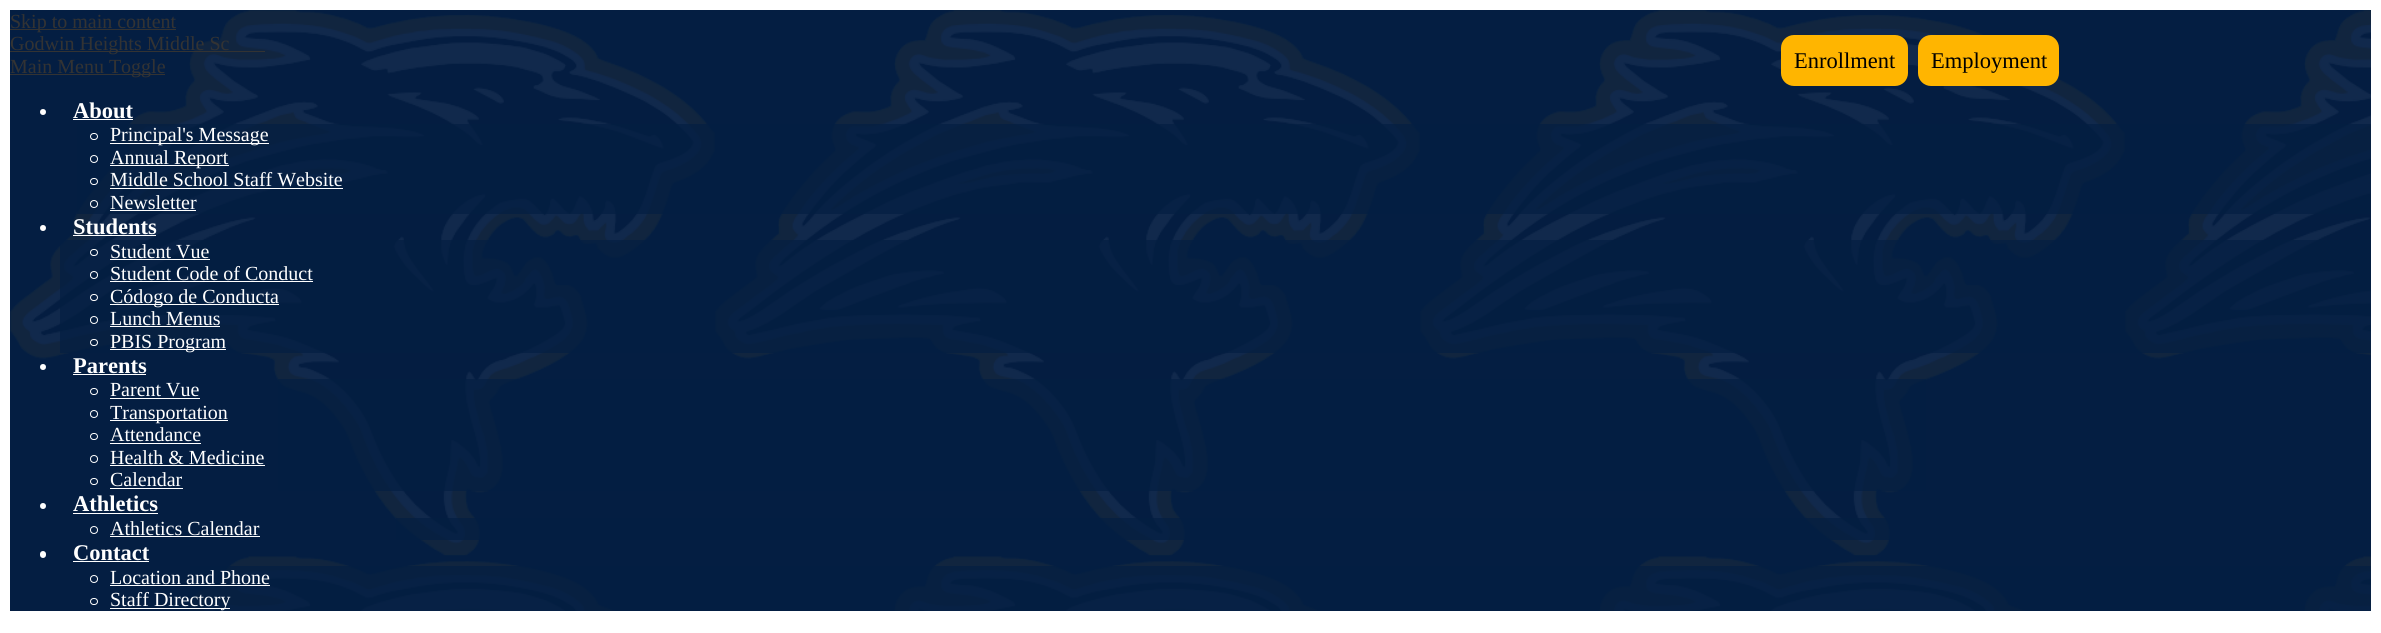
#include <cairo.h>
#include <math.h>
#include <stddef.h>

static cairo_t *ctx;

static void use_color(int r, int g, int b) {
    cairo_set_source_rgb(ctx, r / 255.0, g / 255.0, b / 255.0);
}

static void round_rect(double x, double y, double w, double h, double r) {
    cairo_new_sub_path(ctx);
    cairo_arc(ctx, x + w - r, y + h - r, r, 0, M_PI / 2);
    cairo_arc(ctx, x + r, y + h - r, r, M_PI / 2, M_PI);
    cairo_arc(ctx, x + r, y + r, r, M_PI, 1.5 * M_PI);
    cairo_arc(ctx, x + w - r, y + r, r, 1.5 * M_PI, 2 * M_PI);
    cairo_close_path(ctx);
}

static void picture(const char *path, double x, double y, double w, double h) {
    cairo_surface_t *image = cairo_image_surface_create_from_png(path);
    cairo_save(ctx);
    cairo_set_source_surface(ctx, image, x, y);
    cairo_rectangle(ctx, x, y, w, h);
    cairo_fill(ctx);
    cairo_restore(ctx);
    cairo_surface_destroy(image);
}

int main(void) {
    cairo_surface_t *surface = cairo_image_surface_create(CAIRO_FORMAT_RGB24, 2381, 633);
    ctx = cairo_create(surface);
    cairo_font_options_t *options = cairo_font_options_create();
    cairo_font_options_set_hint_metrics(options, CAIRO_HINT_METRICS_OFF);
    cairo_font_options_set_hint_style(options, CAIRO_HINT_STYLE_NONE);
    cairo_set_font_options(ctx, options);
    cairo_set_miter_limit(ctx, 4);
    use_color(255, 255, 255);
    cairo_paint(ctx);
    use_color(4, 30, 66);
    cairo_rectangle(ctx, 10, 10, 2361, 601);
    cairo_fill(ctx);
    picture("img1.png", 10, 10, 2361, 601);
    use_color(51, 51, 51);
    cairo_rectangle(ctx, 10, 29, 166, 1);
    cairo_fill(ctx);
    cairo_select_font_face(ctx, "Liberation Serif", CAIRO_FONT_SLANT_NORMAL, CAIRO_FONT_WEIGHT_NORMAL);
    cairo_set_font_size(ctx, 20);
    cairo_move_to(ctx, 10, 28);
    cairo_show_text(ctx, "Skip to main content");
    cairo_rectangle(ctx, 10, 51, 255, 1);
    cairo_fill(ctx);
    cairo_move_to(ctx, 10, 50);
    cairo_show_text(ctx, "Godwin Heights Middle Sc");
    cairo_rectangle(ctx, 10, 74, 155, 1);
    cairo_fill(ctx);
    cairo_move_to(ctx, 10, 73);
    cairo_show_text(ctx, "Main Menu Toggle");
    use_color(255, 255, 255);
    cairo_new_path(ctx);
    cairo_arc(ctx, 43, 112, 3, 0, 2 * M_PI);
    cairo_fill(ctx);
    cairo_select_font_face(ctx, "Liberation Serif", CAIRO_FONT_SLANT_NORMAL, CAIRO_FONT_WEIGHT_BOLD);
    cairo_set_font_size(ctx, 22.5);
    cairo_move_to(ctx, 73, 118);
    cairo_show_text(ctx, "About");
    cairo_rectangle(ctx, 73, 119, 60, 1);
    cairo_fill(ctx);
    cairo_set_source_rgba(ctx, 0.016, 0.118, 0.259, 0.7);
    cairo_rectangle(ctx, 77, 124, 2294, 90);
    cairo_fill(ctx);
    round_rect(90.5, 133.5, 7, 6, 3);
    use_color(255, 255, 255);
    cairo_set_line_width(ctx, 1);
    cairo_stroke(ctx);
    cairo_rectangle(ctx, 110, 143, 159, 1);
    cairo_fill(ctx);
    cairo_select_font_face(ctx, "Liberation Serif", CAIRO_FONT_SLANT_NORMAL, CAIRO_FONT_WEIGHT_NORMAL);
    cairo_set_font_size(ctx, 20);
    cairo_move_to(ctx, 110, 141);
    cairo_show_text(ctx, "Principal's Message");
    cairo_new_path(ctx);
    cairo_arc(ctx, 94, 159, 3.5, 0, 2 * M_PI);
    cairo_stroke(ctx);
    cairo_rectangle(ctx, 110, 165, 119, 1);
    cairo_fill(ctx);
    cairo_move_to(ctx, 110, 164);
    cairo_show_text(ctx, "Annual Report");
    round_rect(90.5, 178.5, 7, 6, 3);
    cairo_stroke(ctx);
    cairo_move_to(ctx, 110, 186);
    cairo_show_text(ctx, "Middle School Staff Website");
    cairo_rectangle(ctx, 110, 188, 233, 1);
    cairo_fill(ctx);
    cairo_arc(ctx, 94, 204, 3.5, 0, 2 * M_PI);
    cairo_stroke(ctx);
    cairo_move_to(ctx, 110, 209);
    cairo_show_text(ctx, "Newsletter");
    cairo_rectangle(ctx, 110, 210, 86, 1);
    cairo_fill(ctx);
    cairo_arc(ctx, 43, 228, 3, 0, 2 * M_PI);
    cairo_fill(ctx);
    cairo_select_font_face(ctx, "Liberation Serif", CAIRO_FONT_SLANT_NORMAL, CAIRO_FONT_WEIGHT_BOLD);
    cairo_set_font_size(ctx, 22.5);
    cairo_move_to(ctx, 73, 234);
    cairo_show_text(ctx, "Students");
    cairo_rectangle(ctx, 73, 235, 83, 1);
    cairo_fill(ctx);
    cairo_set_source_rgba(ctx, 0.016, 0.118, 0.259, 0.7);
    cairo_rectangle(ctx, 60, 240, 2311, 113);
    cairo_fill(ctx);
    round_rect(90.5, 249.5, 7, 6, 3);
    use_color(255, 255, 255);
    cairo_stroke(ctx);
    cairo_select_font_face(ctx, "Liberation Serif", CAIRO_FONT_SLANT_NORMAL, CAIRO_FONT_WEIGHT_NORMAL);
    cairo_set_font_size(ctx, 20);
    cairo_move_to(ctx, 110, 258);
    cairo_show_text(ctx, "Student Vue");
    cairo_rectangle(ctx, 110, 259, 100, 1);
    cairo_fill(ctx);
    cairo_arc(ctx, 94, 275, 3.5, 0, 2 * M_PI);
    cairo_stroke(ctx);
    cairo_move_to(ctx, 110, 280);
    cairo_show_text(ctx, "Student Code of Conduct");
    cairo_rectangle(ctx, 110, 281, 203, 1);
    cairo_fill(ctx);
    round_rect(90.5, 294.5, 7, 6, 3);
    cairo_stroke(ctx);
    cairo_rectangle(ctx, 110, 304, 169, 1);
    cairo_fill(ctx);
    cairo_move_to(ctx, 110, 303);
    cairo_show_text(ctx, "Códogo de Conducta");
    cairo_new_path(ctx);
    cairo_arc(ctx, 94, 320, 3.5, 0, 2 * M_PI);
    cairo_stroke(ctx);
    cairo_move_to(ctx, 110, 325);
    cairo_show_text(ctx, "Lunch Menus");
    cairo_rectangle(ctx, 110, 326, 110, 1);
    cairo_fill(ctx);
    round_rect(90.5, 339.5, 7, 6, 3);
    cairo_stroke(ctx);
    cairo_rectangle(ctx, 110, 349, 116, 1);
    cairo_fill(ctx);
    cairo_move_to(ctx, 110, 348);
    cairo_show_text(ctx, "PBIS Program");
    cairo_new_path(ctx);
    cairo_arc(ctx, 43, 367, 3, 0, 2 * M_PI);
    cairo_fill(ctx);
    cairo_select_font_face(ctx, "Liberation Serif", CAIRO_FONT_SLANT_NORMAL, CAIRO_FONT_WEIGHT_BOLD);
    cairo_set_font_size(ctx, 22.5);
    cairo_move_to(ctx, 73, 373);
    cairo_show_text(ctx, "Parents");
    cairo_rectangle(ctx, 73, 374, 73, 1);
    cairo_fill(ctx);
    cairo_set_source_rgba(ctx, 0.016, 0.118, 0.259, 0.7);
    cairo_rectangle(ctx, 278, 379, 1648, 112);
    cairo_fill(ctx);
    round_rect(90.5, 388.5, 7, 6, 3);
    use_color(255, 255, 255);
    cairo_stroke(ctx);
    cairo_select_font_face(ctx, "Liberation Serif", CAIRO_FONT_SLANT_NORMAL, CAIRO_FONT_WEIGHT_NORMAL);
    cairo_set_font_size(ctx, 20);
    cairo_move_to(ctx, 110, 396);
    cairo_show_text(ctx, "Parent Vue");
    cairo_rectangle(ctx, 110, 398, 90, 1);
    cairo_fill(ctx);
    cairo_arc(ctx, 94, 414, 3.5, 0, 2 * M_PI);
    cairo_stroke(ctx);
    cairo_rectangle(ctx, 110, 420, 118, 1);
    cairo_fill(ctx);
    cairo_move_to(ctx, 110, 419);
    cairo_show_text(ctx, "Transportation");
    round_rect(90.5, 433.5, 7, 6, 3);
    cairo_stroke(ctx);
    cairo_move_to(ctx, 110, 441);
    cairo_show_text(ctx, "Attendance");
    cairo_rectangle(ctx, 110, 443, 91, 1);
    cairo_fill(ctx);
    cairo_arc(ctx, 94, 459, 3.5, 0, 2 * M_PI);
    cairo_stroke(ctx);
    cairo_move_to(ctx, 110, 464);
    cairo_show_text(ctx, "Health & Medicine");
    cairo_rectangle(ctx, 110, 465, 155, 1);
    cairo_fill(ctx);
    round_rect(90.5, 478.5, 7, 6, 3);
    cairo_stroke(ctx);
    cairo_move_to(ctx, 110, 486);
    cairo_show_text(ctx, "Calendar");
    cairo_rectangle(ctx, 110, 488, 73, 1);
    cairo_fill(ctx);
    cairo_arc(ctx, 43, 506, 3, 0, 2 * M_PI);
    cairo_fill(ctx);
    cairo_select_font_face(ctx, "Liberation Serif", CAIRO_FONT_SLANT_NORMAL, CAIRO_FONT_WEIGHT_BOLD);
    cairo_set_font_size(ctx, 22.5);
    cairo_move_to(ctx, 73, 511);
    cairo_show_text(ctx, "Athletics");
    cairo_rectangle(ctx, 73, 513, 85, 1);
    cairo_fill(ctx);
    cairo_set_source_rgba(ctx, 0.016, 0.118, 0.259, 0.7);
    cairo_rectangle(ctx, 396, 518, 1494, 22);
    cairo_fill(ctx);
    cairo_arc(ctx, 94, 530, 3.5, 0, 2 * M_PI);
    use_color(255, 255, 255);
    cairo_stroke(ctx);
    cairo_select_font_face(ctx, "Liberation Serif", CAIRO_FONT_SLANT_NORMAL, CAIRO_FONT_WEIGHT_NORMAL);
    cairo_set_font_size(ctx, 20);
    cairo_move_to(ctx, 110, 535);
    cairo_show_text(ctx, "Athletics Calendar");
    cairo_rectangle(ctx, 110, 536, 150, 1);
    cairo_fill(ctx);
    round_rect(40, 551, 6, 7, 3);
    cairo_fill(ctx);
    cairo_select_font_face(ctx, "Liberation Serif", CAIRO_FONT_SLANT_NORMAL, CAIRO_FONT_WEIGHT_BOLD);
    cairo_set_font_size(ctx, 22.5);
    cairo_move_to(ctx, 73, 560);
    cairo_show_text(ctx, "Contact");
    cairo_rectangle(ctx, 73, 561, 76, 1);
    cairo_fill(ctx);
    cairo_set_source_rgba(ctx, 0.016, 0.118, 0.259, 0.7);
    cairo_rectangle(ctx, 190, 566, 2181, 45);
    cairo_fill(ctx);
    cairo_arc(ctx, 94, 579, 3.5, 0, 2 * M_PI);
    use_color(255, 255, 255);
    cairo_stroke(ctx);
    cairo_select_font_face(ctx, "Liberation Serif", CAIRO_FONT_SLANT_NORMAL, CAIRO_FONT_WEIGHT_NORMAL);
    cairo_set_font_size(ctx, 20);
    cairo_move_to(ctx, 110, 584);
    cairo_show_text(ctx, "Location and Phone");
    cairo_rectangle(ctx, 110, 585, 160, 1);
    cairo_fill(ctx);
    round_rect(90.5, 598.5, 7, 6, 3);
    cairo_stroke(ctx);
    cairo_rectangle(ctx, 110, 608, 120, 1);
    cairo_fill(ctx);
    cairo_move_to(ctx, 110, 606);
    cairo_show_text(ctx, "Staff Directory");
    use_color(255, 181, 0);
    round_rect(1781, 35, 127, 51, 13);
    cairo_fill(ctx);
    cairo_set_font_size(ctx, 22.5);
    use_color(0, 0, 0);
    cairo_move_to(ctx, 1794, 68);
    cairo_show_text(ctx, "Enrollment");
    use_color(255, 181, 0);
    round_rect(1918, 35, 141, 51, 13);
    cairo_fill(ctx);
    use_color(0, 0, 0);
    cairo_move_to(ctx, 1931, 68);
    cairo_show_text(ctx, "Employment");
    cairo_surface_write_to_png(surface, "result.png");
    cairo_font_options_destroy(options);
    cairo_destroy(ctx);
    cairo_surface_destroy(surface);
    return 0;
}
